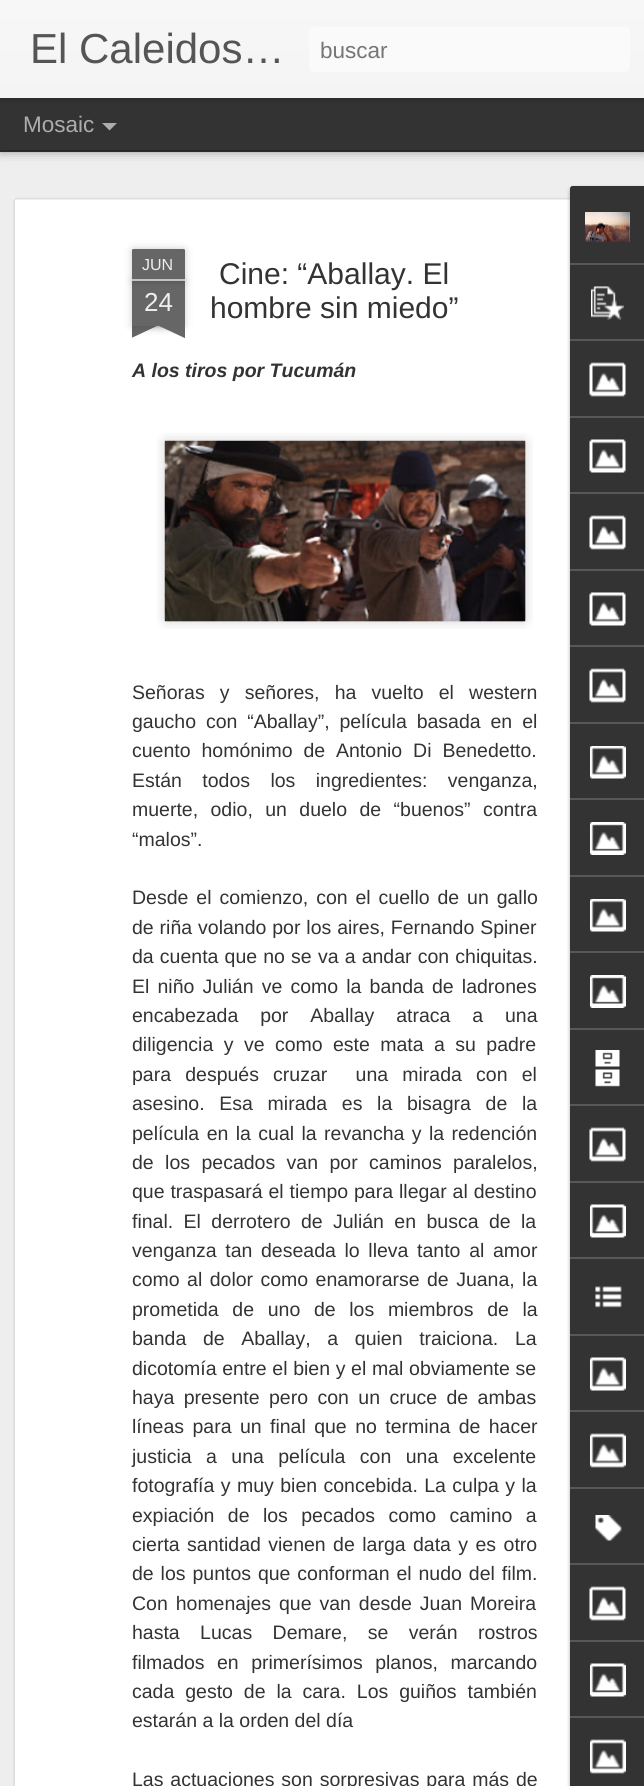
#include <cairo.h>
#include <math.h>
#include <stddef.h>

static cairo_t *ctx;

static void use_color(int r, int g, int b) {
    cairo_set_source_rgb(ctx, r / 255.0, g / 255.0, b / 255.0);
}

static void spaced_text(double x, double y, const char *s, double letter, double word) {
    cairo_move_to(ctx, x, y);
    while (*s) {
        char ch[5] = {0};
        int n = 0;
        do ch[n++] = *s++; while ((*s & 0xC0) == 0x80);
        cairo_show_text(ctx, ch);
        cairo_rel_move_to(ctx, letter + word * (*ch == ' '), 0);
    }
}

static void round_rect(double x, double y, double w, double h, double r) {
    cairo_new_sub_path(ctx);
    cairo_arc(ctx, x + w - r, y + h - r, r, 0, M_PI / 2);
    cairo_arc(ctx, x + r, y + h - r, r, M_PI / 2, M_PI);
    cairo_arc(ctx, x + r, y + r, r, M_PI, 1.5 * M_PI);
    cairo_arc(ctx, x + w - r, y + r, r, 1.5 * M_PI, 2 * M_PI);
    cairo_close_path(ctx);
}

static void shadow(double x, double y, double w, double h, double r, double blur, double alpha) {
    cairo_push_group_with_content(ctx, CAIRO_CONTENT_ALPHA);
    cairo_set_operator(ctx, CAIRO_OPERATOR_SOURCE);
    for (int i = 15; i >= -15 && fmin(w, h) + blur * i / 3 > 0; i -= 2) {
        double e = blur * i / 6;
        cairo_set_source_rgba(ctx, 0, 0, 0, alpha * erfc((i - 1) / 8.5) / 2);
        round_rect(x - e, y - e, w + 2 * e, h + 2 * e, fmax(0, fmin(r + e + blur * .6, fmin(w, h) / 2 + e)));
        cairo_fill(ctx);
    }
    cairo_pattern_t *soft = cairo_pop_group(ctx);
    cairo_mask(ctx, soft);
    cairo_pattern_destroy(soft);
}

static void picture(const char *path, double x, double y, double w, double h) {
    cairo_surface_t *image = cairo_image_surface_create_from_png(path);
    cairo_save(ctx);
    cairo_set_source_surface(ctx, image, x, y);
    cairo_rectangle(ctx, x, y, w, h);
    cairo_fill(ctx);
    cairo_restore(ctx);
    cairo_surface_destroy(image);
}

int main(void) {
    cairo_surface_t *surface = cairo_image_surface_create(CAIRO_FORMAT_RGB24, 644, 1786);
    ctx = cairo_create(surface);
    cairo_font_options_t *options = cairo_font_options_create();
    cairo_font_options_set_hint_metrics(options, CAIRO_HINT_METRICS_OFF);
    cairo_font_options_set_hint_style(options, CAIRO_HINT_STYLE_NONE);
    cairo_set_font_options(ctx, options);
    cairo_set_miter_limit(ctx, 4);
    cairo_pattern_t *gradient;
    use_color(51, 51, 51);
    cairo_paint(ctx);
    use_color(238, 238, 238);
    cairo_rectangle(ctx, 0, 152, 644, 1634);
    cairo_fill(ctx);
    use_color(0, 0, 0);
    shadow(0, 98, 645, 52, 0, 6, 0.5);
    use_color(51, 51, 51);
    cairo_rectangle(ctx, 0, 98, 644, 52);
    cairo_fill(ctx);
    use_color(0, 0, 0);
    shadow(0, 0, 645, 98, 0, 4, 0.3);
    gradient = cairo_pattern_create_linear(0, 0, 0, 98);
    cairo_pattern_add_color_stop_rgba(gradient, 0, 0.969, 0.969, 0.969, 1);
    cairo_pattern_add_color_stop_rgba(gradient, 1, 0.957, 0.957, 0.957, 1);
    cairo_set_source(ctx, gradient);
    cairo_pattern_destroy(gradient);
    cairo_rectangle(ctx, 0, 0, 644, 98);
    cairo_fill(ctx);
    cairo_select_font_face(ctx, "Liberation Sans", CAIRO_FONT_SLANT_NORMAL, CAIRO_FONT_WEIGHT_NORMAL);
    cairo_set_font_size(ctx, 42);
    use_color(85, 85, 85);
    cairo_move_to(ctx, 30, 63);
    cairo_show_text(ctx, "El Caleidos…");
    use_color(250, 250, 250);
    round_rect(309, 27, 321, 45, 5);
    cairo_fill(ctx);
    cairo_set_font_size(ctx, 22.5);
    use_color(117, 117, 117);
    cairo_move_to(ctx, 320, 58);
    cairo_show_text(ctx, "buscar");
    use_color(173, 173, 173);
    cairo_move_to(ctx, 23, 132);
    cairo_show_text(ctx, "Mosaic");
    cairo_new_path(ctx);
    cairo_move_to(ctx, 102, 123);
    cairo_line_to(ctx, 117, 123);
    cairo_line_to(ctx, 109.5, 130.5);
    cairo_close_path(ctx);
    cairo_fill(ctx);
    use_color(255, 255, 255);
    cairo_rectangle(ctx, 12, 197, 558, 1589);
    cairo_fill(ctx);
    picture("img1.png", 12, 197, 558, 1589);
    use_color(0, 0, 0);
    shadow(132, 281, 53, 45, 0, 4, 0.2);
    use_color(102, 102, 102);
    cairo_rectangle(ctx, 132, 281, 53, 45);
    cairo_fill(ctx);
    use_color(0, 0, 0);
    shadow(132, 249, 53, 32, 1.5, 4, 0.2);
    use_color(102, 102, 102);
    cairo_new_path(ctx);
    cairo_move_to(ctx, 133.5, 249);
    cairo_line_to(ctx, 183.5, 249);
    cairo_curve_to(ctx, 184.5, 249, 185, 249.5, 185, 250.5);
    cairo_line_to(ctx, 185, 281);
    cairo_line_to(ctx, 132, 281);
    cairo_line_to(ctx, 132, 250.5);
    cairo_curve_to(ctx, 132, 249.5, 132.5, 249, 133.5, 249);
    cairo_close_path(ctx);
    cairo_fill(ctx);
    use_color(194, 194, 194);
    cairo_rectangle(ctx, 132, 279, 53, 2);
    cairo_fill(ctx);
    cairo_set_font_size(ctx, 16);
    use_color(238, 238, 238);
    cairo_move_to(ctx, 142, 270);
    cairo_show_text(ctx, "JUN");
    cairo_set_font_size(ctx, 26);
    cairo_move_to(ctx, 144, 311);
    cairo_show_text(ctx, "24");
    cairo_save(ctx);
    cairo_rectangle(ctx, 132, 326, 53, 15);
    cairo_clip(ctx);
    use_color(0, 0, 0);
    shadow(119, 311, 75, 15, 0, 4, 0.2);
    cairo_restore(ctx);
    cairo_save(ctx);
    cairo_rectangle(ctx, 132, 326, 53, 15);
    cairo_clip(ctx);
    use_color(102, 102, 102);
    cairo_new_path(ctx);
    cairo_move_to(ctx, 119, 327);
    cairo_line_to(ctx, 187, 295);
    cairo_line_to(ctx, 193, 309);
    cairo_line_to(ctx, 125, 341);
    cairo_close_path(ctx);
    cairo_fill(ctx);
    cairo_restore(ctx);
    cairo_save(ctx);
    cairo_rectangle(ctx, 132, 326, 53, 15);
    cairo_clip(ctx);
    use_color(0, 0, 0);
    shadow(123, 311, 75, 15, 0, 4, 0.2);
    cairo_restore(ctx);
    cairo_save(ctx);
    cairo_rectangle(ctx, 132, 326, 53, 15);
    cairo_clip(ctx);
    use_color(102, 102, 102);
    cairo_new_path(ctx);
    cairo_move_to(ctx, 130, 295);
    cairo_line_to(ctx, 198, 327);
    cairo_line_to(ctx, 191, 341);
    cairo_line_to(ctx, 123, 309);
    cairo_close_path(ctx);
    cairo_fill(ctx);
    cairo_restore(ctx);
    cairo_set_font_size(ctx, 30);
    use_color(51, 51, 51);
    cairo_move_to(ctx, 219, 284);
    cairo_show_text(ctx, "Cine: “Aballay. El");
    cairo_move_to(ctx, 210, 318);
    cairo_show_text(ctx, "hombre sin miedo”");
    cairo_select_font_face(ctx, "Liberation Sans", CAIRO_FONT_SLANT_ITALIC, CAIRO_FONT_WEIGHT_BOLD);
    cairo_set_font_size(ctx, 19.5);
    cairo_move_to(ctx, 132, 377);
    cairo_show_text(ctx, "A los tiros por Tucumán");
    picture("img2.png", 157, 433, 376, 196);
    picture("img3.png", 164, 440, 362, 182);
    cairo_select_font_face(ctx, "Liberation Sans", CAIRO_FONT_SLANT_NORMAL, CAIRO_FONT_WEIGHT_NORMAL);
    spaced_text(132, 699, "Señoras y señores, ha vuelto el western", 0, 9.75);
    spaced_text(132, 728, "gaucho con “Aballay”, película basada en el", 0, 4.5);
    spaced_text(132, 757, "cuento homónimo de Antonio Di Benedetto.", 0, 5.5);
    spaced_text(132, 787, "Están todos los ingredientes: venganza,", 0, 15);
    spaced_text(132, 816, "muerte, odio, un duelo de “buenos” contra", 0, 7);
    cairo_move_to(ctx, 132, 846);
    cairo_show_text(ctx, "“malos”.");
    spaced_text(132, 904, "Desde el comienzo, con el cuello de un gallo", 0, 2.5);
    spaced_text(132, 934, "de riña volando por los aires, Fernando Spiner", 0, 0.5);
    spaced_text(132, 963, "da cuenta que no se va a andar con chiquitas.", 0, 0.75);
    spaced_text(132, 993, "El niño Julián ve como la banda de ladrones", 0, 2.75);
    spaced_text(132, 1022, "encabezada por Aballay atraca a una", 0, 16.5);
    spaced_text(132, 1051, "diligencia y ve como este mata a su padre", 0, 5);
    spaced_text(132, 1081, "para después cruzar  una mirada con el", 0, 8.75);
    spaced_text(132, 1110, "asesino. Esa mirada es la bisagra de la", 0, 9.25);
    spaced_text(132, 1140, "película en la cual la revancha y la redención", 0, 2);
    spaced_text(132, 1169, "de los pecados van por caminos paralelos,", 0, 6);
    spaced_text(132, 1198, "que traspasará el tiempo para llegar al destino", 0, 0.5);
    spaced_text(132, 1228, "final. El derrotero de Julián en busca de la", 0, 5);
    spaced_text(132, 1257, "venganza tan deseada lo lleva tanto al amor", 0, 3.25);
    spaced_text(132, 1286, "como al dolor como enamorarse de Juana, la", 0, 2);
    spaced_text(132, 1316, "prometida de uno de los miembros de la", 0, 8.25);
    spaced_text(132, 1345, "banda de Aballay, a quien traiciona. La", 0, 11.25);
    spaced_text(132, 1375, "dicotomía entre el bien y el mal obviamente se", 0, 0.25);
    spaced_text(132, 1404, "haya presente pero con un cruce de ambas", 0, 4);
    spaced_text(132, 1433, "líneas para un final que no termina de hacer", 0, 3);
    spaced_text(132, 1463, "justicia a una película con una excelente", 0, 9);
    spaced_text(132, 1492, "fotografía y muy bien concebida. La culpa y la", 0, 1);
    spaced_text(132, 1522, "expiación de los pecados como camino a", 0, 8);
    spaced_text(132, 1551, "cierta santidad vienen de larga data y es otro", 0, 2);
    spaced_text(132, 1580, "de los puntos que conforman el nudo del film.", 0, 1.5);
    spaced_text(132, 1610, "Con homenajes que van desde Juan Moreira", 0, 2.5);
    spaced_text(132, 1639, "hasta Lucas Demare, se verán rostros", 0, 15);
    spaced_text(132, 1669, "filmados en primerísimos planos, marcando", 0, 7);
    spaced_text(132, 1698, "cada gesto de la cara. Los guiños también", 0, 5.5);
    cairo_move_to(ctx, 132, 1727);
    cairo_show_text(ctx, "estarán a la orden del día");
    spaced_text(132, 1786, "Las actuaciones son sorpresivas para más de", 0, 1.5);
    use_color(0, 0, 0);
    shadow(570, 188, 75, 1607, 3, 2, 0.3);
    use_color(51, 51, 51);
    cairo_new_path(ctx);
    cairo_move_to(ctx, 573, 186);
    cairo_line_to(ctx, 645, 186);
    cairo_line_to(ctx, 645, 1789);
    cairo_line_to(ctx, 573, 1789);
    cairo_curve_to(ctx, 571.5, 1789, 570, 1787.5, 570, 1786);
    cairo_line_to(ctx, 570, 189);
    cairo_curve_to(ctx, 570, 187.5, 571.5, 186, 573, 186);
    cairo_close_path(ctx);
    cairo_fill(ctx);
    cairo_new_path(ctx);
    cairo_move_to(ctx, 573, 186);
    cairo_line_to(ctx, 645, 186);
    cairo_line_to(ctx, 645, 263);
    cairo_line_to(ctx, 570, 263);
    cairo_line_to(ctx, 570, 189);
    cairo_curve_to(ctx, 570, 187.5, 571.5, 186, 573, 186);
    cairo_close_path(ctx);
    cairo_fill(ctx);
    picture("img4.png", 585, 212, 45, 30);
    use_color(88, 88, 88);
    cairo_rectangle(ctx, 570, 263, 74, 2);
    cairo_fill(ctx);
    picture("img5.png", 591, 286, 33, 34);
    cairo_rectangle(ctx, 570, 339, 74, 2);
    cairo_fill(ctx);
    picture("img6.png", 589, 362, 37, 35);
    cairo_rectangle(ctx, 570, 416, 74, 2);
    cairo_fill(ctx);
    picture("img7.png", 589, 439, 37, 34);
    cairo_rectangle(ctx, 570, 492, 74, 2);
    cairo_fill(ctx);
    picture("img6.png", 589, 515, 37, 35);
    cairo_rectangle(ctx, 570, 569, 74, 2);
    cairo_fill(ctx);
    picture("img7.png", 589, 592, 37, 34);
    cairo_rectangle(ctx, 570, 645, 74, 2);
    cairo_fill(ctx);
    picture("img6.png", 589, 668, 37, 35);
    cairo_rectangle(ctx, 570, 722, 74, 2);
    cairo_fill(ctx);
    picture("img8.png", 590, 746, 36, 33);
    cairo_rectangle(ctx, 570, 798, 74, 2);
    cairo_fill(ctx);
    picture("img9.png", 590, 822, 36, 33);
    cairo_rectangle(ctx, 570, 875, 74, 2);
    cairo_fill(ctx);
    picture("img8.png", 590, 899, 36, 33);
    cairo_rectangle(ctx, 570, 951, 74, 2);
    cairo_fill(ctx);
    picture("img9.png", 590, 975, 36, 33);
    cairo_rectangle(ctx, 570, 1028, 74, 2);
    cairo_fill(ctx);
    picture("img10.png", 595, 1050, 25, 37);
    cairo_rectangle(ctx, 570, 1104, 74, 2);
    cairo_fill(ctx);
    picture("img6.png", 589, 1127, 37, 35);
    cairo_rectangle(ctx, 570, 1181, 74, 2);
    cairo_fill(ctx);
    picture("img11.png", 590, 1204, 36, 34);
    cairo_rectangle(ctx, 570, 1257, 74, 2);
    cairo_fill(ctx);
    picture("img12.png", 595, 1286, 27, 22);
    cairo_rectangle(ctx, 570, 1334, 74, 2);
    cairo_fill(ctx);
    picture("img13.png", 590, 1357, 36, 34);
    cairo_rectangle(ctx, 570, 1410, 74, 2);
    cairo_fill(ctx);
    picture("img14.png", 590, 1433, 36, 35);
    cairo_rectangle(ctx, 570, 1487, 74, 2);
    cairo_fill(ctx);
    picture("img15.png", 595, 1515, 27, 26);
    cairo_rectangle(ctx, 570, 1563, 74, 2);
    cairo_fill(ctx);
    picture("img6.png", 589, 1586, 37, 35);
    cairo_rectangle(ctx, 570, 1640, 74, 2);
    cairo_fill(ctx);
    picture("img11.png", 590, 1663, 36, 34);
    cairo_rectangle(ctx, 570, 1716, 74, 2);
    cairo_fill(ctx);
    picture("img14.png", 590, 1739, 36, 35);
    cairo_surface_write_to_png(surface, "result.png");
    cairo_font_options_destroy(options);
    cairo_destroy(ctx);
    cairo_surface_destroy(surface);
    return 0;
}
